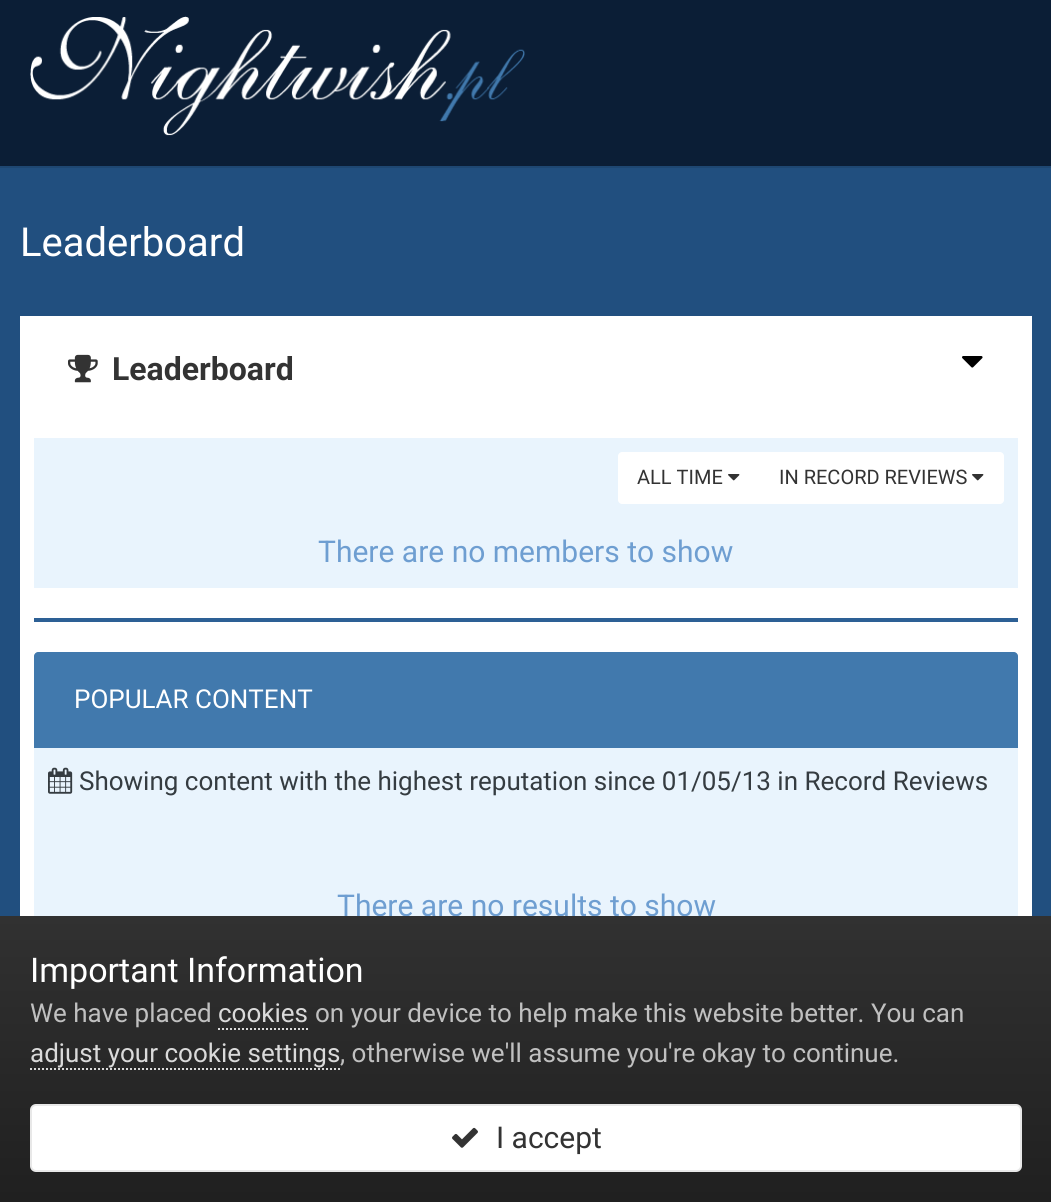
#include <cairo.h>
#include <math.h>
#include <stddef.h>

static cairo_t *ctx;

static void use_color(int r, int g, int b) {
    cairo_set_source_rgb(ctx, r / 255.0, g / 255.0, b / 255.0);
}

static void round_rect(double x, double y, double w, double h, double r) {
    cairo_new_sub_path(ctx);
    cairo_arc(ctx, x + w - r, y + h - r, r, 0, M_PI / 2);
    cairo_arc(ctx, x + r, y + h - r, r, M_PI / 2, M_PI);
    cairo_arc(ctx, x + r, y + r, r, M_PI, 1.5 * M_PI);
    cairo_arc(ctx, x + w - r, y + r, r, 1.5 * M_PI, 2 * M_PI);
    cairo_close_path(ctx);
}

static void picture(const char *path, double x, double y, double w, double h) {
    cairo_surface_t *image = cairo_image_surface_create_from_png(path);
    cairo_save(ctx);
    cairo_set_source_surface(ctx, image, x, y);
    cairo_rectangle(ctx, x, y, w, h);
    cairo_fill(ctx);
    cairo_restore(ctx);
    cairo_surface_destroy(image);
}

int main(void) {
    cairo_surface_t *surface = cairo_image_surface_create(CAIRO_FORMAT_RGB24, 1051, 1202);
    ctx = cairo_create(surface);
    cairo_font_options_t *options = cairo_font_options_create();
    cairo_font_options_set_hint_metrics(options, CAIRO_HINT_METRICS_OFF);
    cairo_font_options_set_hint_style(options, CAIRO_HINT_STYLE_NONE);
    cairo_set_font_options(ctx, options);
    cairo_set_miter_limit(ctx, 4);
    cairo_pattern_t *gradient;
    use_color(33, 79, 127);
    cairo_paint(ctx);
    use_color(30, 71, 114);
    cairo_rectangle(ctx, 0, 166, 1051, 2);
    cairo_fill(ctx);
    use_color(11, 30, 54);
    cairo_rectangle(ctx, 0, 0, 1051, 166);
    cairo_fill(ctx);
    picture("img1.png", 30, 16, 495, 120);
    cairo_select_font_face(ctx, "Roboto", CAIRO_FONT_SLANT_NORMAL, CAIRO_FONT_WEIGHT_NORMAL);
    cairo_set_font_size(ctx, 40);
    use_color(255, 255, 255);
    cairo_move_to(ctx, 20, 256);
    cairo_show_text(ctx, "Leaderboard");
    cairo_rectangle(ctx, 20, 316, 1012, 600);
    cairo_fill(ctx);
    picture("img2.png", 68, 354, 30, 29);
    cairo_select_font_face(ctx, "Roboto", CAIRO_FONT_SLANT_NORMAL, CAIRO_FONT_WEIGHT_BOLD);
    cairo_set_font_size(ctx, 32);
    use_color(51, 51, 51);
    cairo_move_to(ctx, 112, 380);
    cairo_show_text(ctx, "Leaderboard");
    picture("img3.png", 962, 356, 21, 12);
    use_color(233, 244, 253);
    cairo_rectangle(ctx, 34, 438, 984, 150);
    cairo_fill(ctx);
    use_color(255, 255, 255);
    cairo_new_path(ctx);
    cairo_move_to(ctx, 622, 452);
    cairo_line_to(ctx, 760, 452);
    cairo_line_to(ctx, 760, 504);
    cairo_line_to(ctx, 622, 504);
    cairo_curve_to(ctx, 620, 504, 618, 502, 618, 500);
    cairo_line_to(ctx, 618, 456);
    cairo_curve_to(ctx, 618, 454, 620, 452, 622, 452);
    cairo_close_path(ctx);
    cairo_fill(ctx);
    cairo_select_font_face(ctx, "Roboto", CAIRO_FONT_SLANT_NORMAL, CAIRO_FONT_WEIGHT_NORMAL);
    cairo_set_font_size(ctx, 20);
    use_color(51, 51, 51);
    cairo_move_to(ctx, 637, 484);
    cairo_show_text(ctx, "ALL TIME");
    picture("img4.png", 728, 474, 12, 7);
    use_color(255, 255, 255);
    cairo_new_path(ctx);
    cairo_move_to(ctx, 760, 452);
    cairo_line_to(ctx, 1000, 452);
    cairo_curve_to(ctx, 1002, 452, 1004, 454, 1004, 456);
    cairo_line_to(ctx, 1004, 500);
    cairo_curve_to(ctx, 1004, 502, 1002, 504, 1000, 504);
    cairo_line_to(ctx, 760, 504);
    cairo_close_path(ctx);
    cairo_fill(ctx);
    use_color(51, 51, 51);
    cairo_move_to(ctx, 779, 484);
    cairo_show_text(ctx, "IN RECORD REVIEWS");
    picture("img4.png", 972, 474, 12, 7);
    cairo_set_font_size(ctx, 30);
    use_color(110, 158, 209);
    cairo_move_to(ctx, 318, 562);
    cairo_show_text(ctx, "There are no members to show");
    use_color(45, 96, 149);
    cairo_rectangle(ctx, 34, 618, 984, 4);
    cairo_fill(ctx);
    use_color(65, 121, 173);
    cairo_new_path(ctx);
    cairo_move_to(ctx, 38, 652);
    cairo_line_to(ctx, 1014, 652);
    cairo_curve_to(ctx, 1016, 652, 1018, 654, 1018, 656);
    cairo_line_to(ctx, 1018, 748);
    cairo_line_to(ctx, 34, 748);
    cairo_line_to(ctx, 34, 656);
    cairo_curve_to(ctx, 34, 654, 36, 652, 38, 652);
    cairo_close_path(ctx);
    cairo_fill(ctx);
    cairo_set_font_size(ctx, 26);
    use_color(255, 255, 255);
    cairo_move_to(ctx, 74, 708);
    cairo_show_text(ctx, "POPULAR CONTENT");
    use_color(233, 244, 253);
    cairo_rectangle(ctx, 34, 748, 984, 168);
    cairo_fill(ctx);
    picture("img5.png", 48, 767, 25, 27);
    use_color(53, 60, 65);
    cairo_move_to(ctx, 79, 790);
    cairo_show_text(ctx, "Showing content with the highest reputation since 01/05/13 in Record Reviews");
    cairo_set_font_size(ctx, 30);
    use_color(110, 158, 209);
    cairo_move_to(ctx, 337, 916);
    cairo_show_text(ctx, "There are no results to show");
    gradient = cairo_pattern_create_linear(526, 916, 526, 1202);
    cairo_pattern_add_color_stop_rgba(gradient, 0, 0.192, 0.192, 0.192, 1);
    cairo_pattern_add_color_stop_rgba(gradient, 1, 0.125, 0.125, 0.125, 1);
    cairo_set_source(ctx, gradient);
    cairo_pattern_destroy(gradient);
    cairo_rectangle(ctx, 0, 916, 1051, 286);
    cairo_fill(ctx);
    cairo_set_font_size(ctx, 34);
    use_color(255, 255, 255);
    cairo_move_to(ctx, 30, 982);
    cairo_show_text(ctx, "Important Information");
    cairo_set_font_size(ctx, 26);
    use_color(192, 192, 192);
    cairo_move_to(ctx, 30, 1022);
    cairo_show_text(ctx, "We have placed");
    use_color(218, 218, 218);
    cairo_move_to(ctx, 218, 1022);
    cairo_show_text(ctx, "cookies");
    cairo_new_path(ctx);
    cairo_move_to(ctx, 218, 1029);
    cairo_line_to(ctx, 308, 1029);
    cairo_set_dash(ctx, (double[]){2, 2}, 2, 0);
    cairo_stroke(ctx);
    use_color(192, 192, 192);
    cairo_move_to(ctx, 315, 1022);
    cairo_show_text(ctx, "on your device to help make this website better. You can");
    use_color(218, 218, 218);
    cairo_move_to(ctx, 30, 1062);
    cairo_show_text(ctx, "adjust your cookie settings");
    cairo_new_path(ctx);
    cairo_move_to(ctx, 30, 1069);
    cairo_line_to(ctx, 340, 1069);
    cairo_stroke(ctx);
    use_color(192, 192, 192);
    cairo_move_to(ctx, 340, 1062);
    cairo_show_text(ctx, ", otherwise we'll assume you're okay to continue.");
    use_color(255, 255, 255);
    round_rect(31, 1105, 990, 66, 5);
    cairo_fill_preserve(ctx);
    use_color(232, 232, 232);
    cairo_set_dash(ctx, NULL, 0, 0);
    cairo_stroke(ctx);
    picture("img6.png", 452, 1127, 26, 21);
    cairo_set_font_size(ctx, 30);
    use_color(51, 51, 51);
    cairo_move_to(ctx, 496, 1148);
    cairo_show_text(ctx, "I accept");
    cairo_surface_write_to_png(surface, "result.png");
    cairo_font_options_destroy(options);
    cairo_destroy(ctx);
    cairo_surface_destroy(surface);
    return 0;
}
